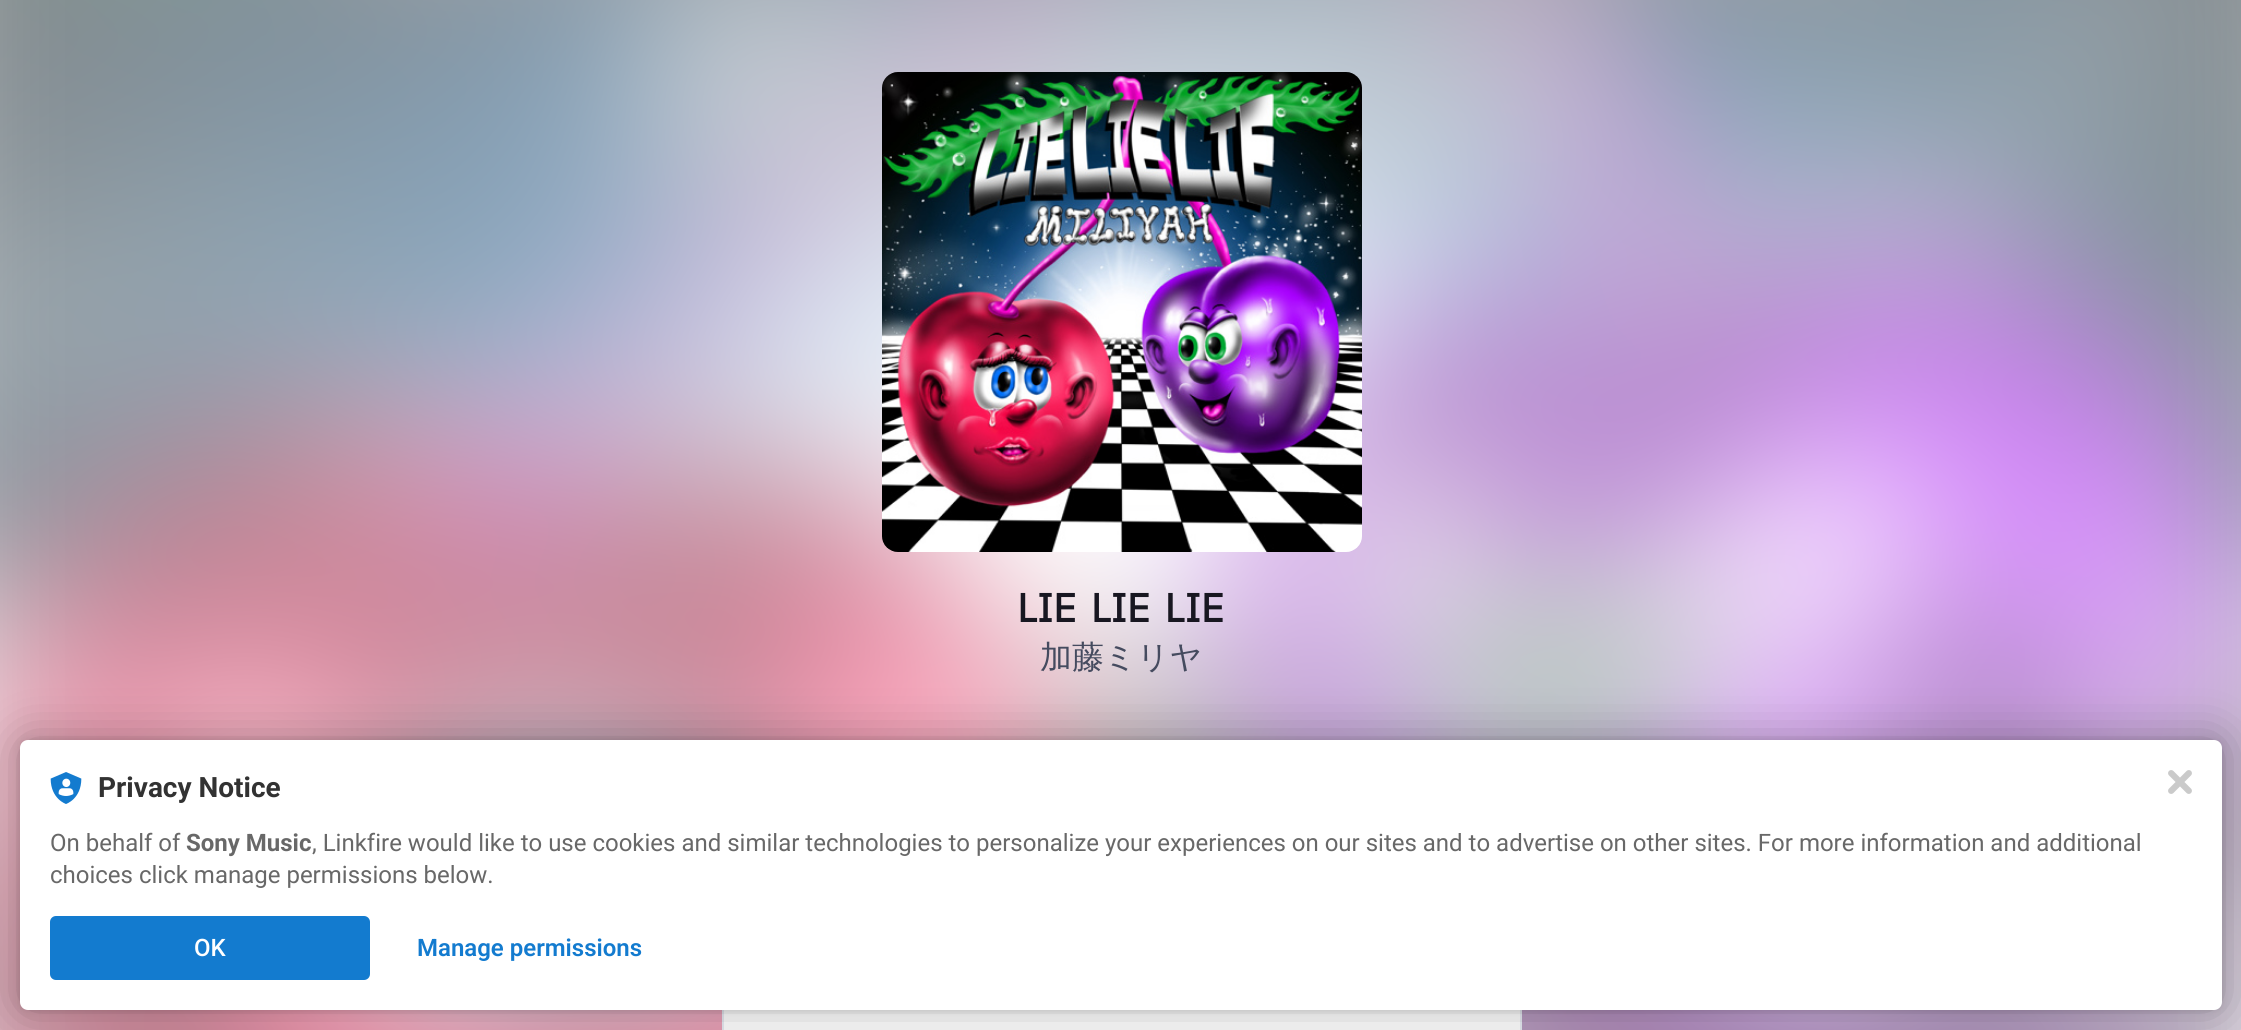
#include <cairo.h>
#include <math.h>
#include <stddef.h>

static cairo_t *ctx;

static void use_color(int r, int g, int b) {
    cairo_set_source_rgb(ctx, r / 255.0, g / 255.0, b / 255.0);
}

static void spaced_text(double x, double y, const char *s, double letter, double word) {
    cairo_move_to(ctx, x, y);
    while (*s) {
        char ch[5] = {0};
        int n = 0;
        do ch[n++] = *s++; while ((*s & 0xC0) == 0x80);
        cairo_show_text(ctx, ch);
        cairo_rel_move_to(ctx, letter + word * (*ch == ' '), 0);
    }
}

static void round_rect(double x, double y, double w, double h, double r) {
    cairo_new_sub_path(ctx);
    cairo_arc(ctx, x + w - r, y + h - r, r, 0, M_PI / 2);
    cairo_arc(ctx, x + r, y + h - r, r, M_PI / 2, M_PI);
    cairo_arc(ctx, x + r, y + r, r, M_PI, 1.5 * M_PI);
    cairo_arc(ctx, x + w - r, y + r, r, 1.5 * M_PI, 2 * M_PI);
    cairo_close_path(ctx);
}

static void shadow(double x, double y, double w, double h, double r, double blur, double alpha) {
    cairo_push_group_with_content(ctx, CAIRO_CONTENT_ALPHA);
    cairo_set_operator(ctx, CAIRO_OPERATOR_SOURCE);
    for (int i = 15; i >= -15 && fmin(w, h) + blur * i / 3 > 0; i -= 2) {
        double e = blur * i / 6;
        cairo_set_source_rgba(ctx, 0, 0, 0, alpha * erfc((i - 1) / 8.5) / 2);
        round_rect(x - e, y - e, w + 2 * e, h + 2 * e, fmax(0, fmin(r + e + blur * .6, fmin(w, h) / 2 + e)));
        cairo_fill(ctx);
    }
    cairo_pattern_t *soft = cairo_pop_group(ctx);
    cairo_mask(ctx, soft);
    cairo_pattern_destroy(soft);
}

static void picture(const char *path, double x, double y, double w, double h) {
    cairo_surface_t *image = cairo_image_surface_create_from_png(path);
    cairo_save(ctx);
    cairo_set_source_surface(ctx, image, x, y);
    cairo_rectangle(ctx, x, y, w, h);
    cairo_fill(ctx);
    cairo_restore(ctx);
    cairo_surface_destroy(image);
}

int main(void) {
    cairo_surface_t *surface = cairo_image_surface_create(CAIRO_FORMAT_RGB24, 2241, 1030);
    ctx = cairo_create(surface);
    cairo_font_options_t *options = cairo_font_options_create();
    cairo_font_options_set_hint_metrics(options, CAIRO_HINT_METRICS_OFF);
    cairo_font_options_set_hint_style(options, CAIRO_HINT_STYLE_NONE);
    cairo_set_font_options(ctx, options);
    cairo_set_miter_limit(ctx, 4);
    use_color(255, 255, 255);
    cairo_paint(ctx);
    picture("img1.png", 0, 0, 2241, 1030);
    picture("img2.png", 882, 72, 480, 480);
    cairo_select_font_face(ctx, "IBM Plex Sans", CAIRO_FONT_SLANT_NORMAL, CAIRO_FONT_WEIGHT_BOLD);
    cairo_set_font_size(ctx, 40);
    use_color(24, 23, 33);
    spaced_text(1017, 622, "LIE LIE LIE", 0, 5);
    cairo_select_font_face(ctx, "WenQuanYi Zen Hei Medium", CAIRO_FONT_SLANT_NORMAL, CAIRO_FONT_WEIGHT_NORMAL);
    cairo_set_font_size(ctx, 32);
    use_color(69, 75, 95);
    cairo_move_to(ctx, 1040, 668);
    cairo_show_text(ctx, "加藤ミリヤ");
    cairo_rectangle(ctx, 723, 745, 798, 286);
    use_color(230, 234, 242);
    cairo_stroke(ctx);
    use_color(255, 255, 255);
    cairo_rectangle(ctx, 724, 1010, 796, 20);
    cairo_fill(ctx);
    use_color(0, 0, 0);
    shadow(20, 740, 2202, 270, 8, 4, 0.12);
    shadow(20, 740, 2202, 270, 8, 24, 0.3);
    use_color(255, 255, 255);
    round_rect(20, 740, 2202, 270, 8);
    cairo_fill(ctx);
    picture("img3.png", 50, 772, 32, 32);
    cairo_select_font_face(ctx, "Roboto", CAIRO_FONT_SLANT_NORMAL, CAIRO_FONT_WEIGHT_BOLD);
    cairo_set_font_size(ctx, 28);
    use_color(50, 50, 50);
    cairo_move_to(ctx, 98, 797);
    cairo_show_text(ctx, "Privacy Notice");
    cairo_select_font_face(ctx, "Roboto", CAIRO_FONT_SLANT_NORMAL, CAIRO_FONT_WEIGHT_NORMAL);
    cairo_set_font_size(ctx, 24);
    use_color(104, 104, 104);
    cairo_move_to(ctx, 50, 851);
    cairo_show_text(ctx, "On behalf of");
    cairo_select_font_face(ctx, "Roboto", CAIRO_FONT_SLANT_NORMAL, CAIRO_FONT_WEIGHT_BOLD);
    cairo_move_to(ctx, 186, 851);
    cairo_show_text(ctx, "Sony Music");
    cairo_select_font_face(ctx, "Roboto", CAIRO_FONT_SLANT_NORMAL, CAIRO_FONT_WEIGHT_NORMAL);
    cairo_move_to(ctx, 312, 851);
    cairo_show_text(ctx, ", Linkfire would like to use cookies and similar technologies to personalize your experiences on our sites and to advertise on other sites. For more information and additional");
    cairo_move_to(ctx, 50, 883);
    cairo_show_text(ctx, "choices click manage permissions below.");
    use_color(19, 123, 207);
    round_rect(50, 916, 320, 64, 6);
    cairo_fill(ctx);
    cairo_select_font_face(ctx, "Roboto Medium", CAIRO_FONT_SLANT_NORMAL, CAIRO_FONT_WEIGHT_NORMAL);
    use_color(255, 255, 255);
    cairo_move_to(ctx, 194, 956);
    cairo_show_text(ctx, "OK");
    cairo_select_font_face(ctx, "Roboto SemiBold", CAIRO_FONT_SLANT_NORMAL, CAIRO_FONT_WEIGHT_NORMAL);
    use_color(19, 123, 207);
    cairo_move_to(ctx, 417, 956);
    cairo_show_text(ctx, "Manage permissions");
    picture("img4.png", 2168, 770, 24, 24);
    cairo_surface_write_to_png(surface, "result.png");
    cairo_font_options_destroy(options);
    cairo_destroy(ctx);
    cairo_surface_destroy(surface);
    return 0;
}
